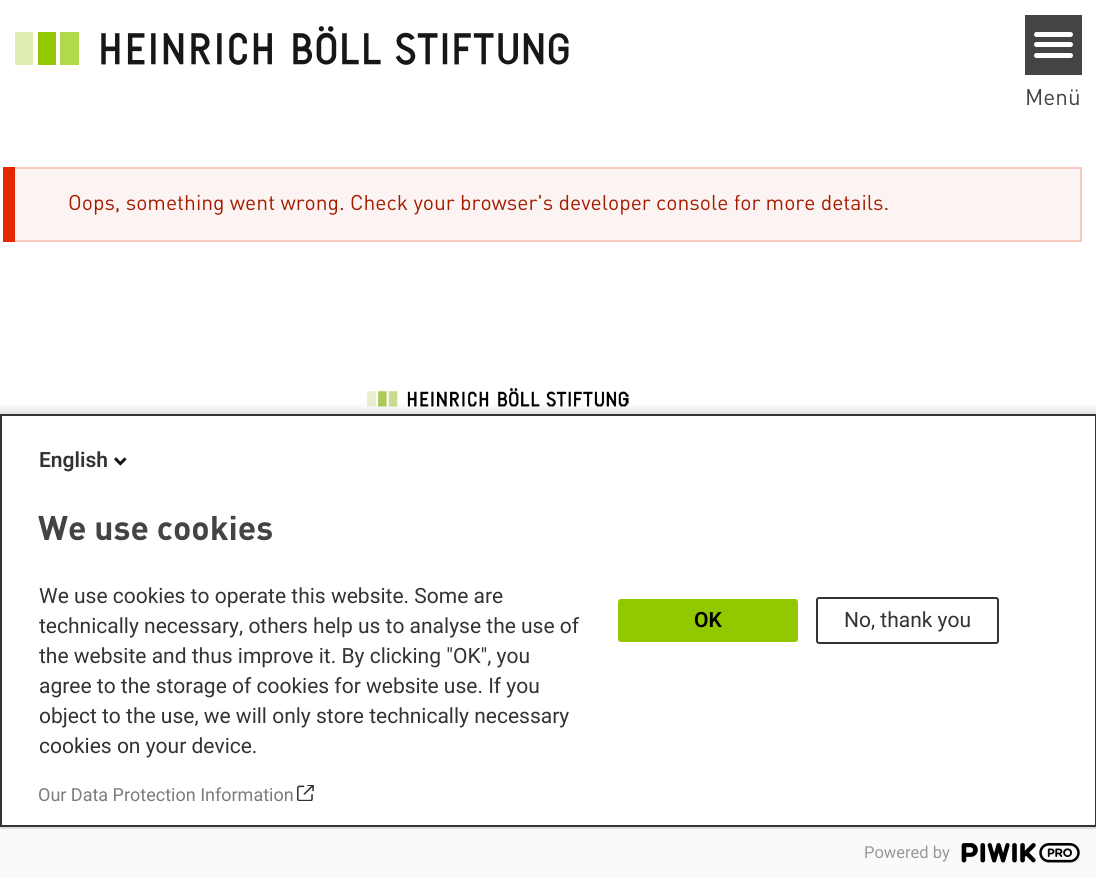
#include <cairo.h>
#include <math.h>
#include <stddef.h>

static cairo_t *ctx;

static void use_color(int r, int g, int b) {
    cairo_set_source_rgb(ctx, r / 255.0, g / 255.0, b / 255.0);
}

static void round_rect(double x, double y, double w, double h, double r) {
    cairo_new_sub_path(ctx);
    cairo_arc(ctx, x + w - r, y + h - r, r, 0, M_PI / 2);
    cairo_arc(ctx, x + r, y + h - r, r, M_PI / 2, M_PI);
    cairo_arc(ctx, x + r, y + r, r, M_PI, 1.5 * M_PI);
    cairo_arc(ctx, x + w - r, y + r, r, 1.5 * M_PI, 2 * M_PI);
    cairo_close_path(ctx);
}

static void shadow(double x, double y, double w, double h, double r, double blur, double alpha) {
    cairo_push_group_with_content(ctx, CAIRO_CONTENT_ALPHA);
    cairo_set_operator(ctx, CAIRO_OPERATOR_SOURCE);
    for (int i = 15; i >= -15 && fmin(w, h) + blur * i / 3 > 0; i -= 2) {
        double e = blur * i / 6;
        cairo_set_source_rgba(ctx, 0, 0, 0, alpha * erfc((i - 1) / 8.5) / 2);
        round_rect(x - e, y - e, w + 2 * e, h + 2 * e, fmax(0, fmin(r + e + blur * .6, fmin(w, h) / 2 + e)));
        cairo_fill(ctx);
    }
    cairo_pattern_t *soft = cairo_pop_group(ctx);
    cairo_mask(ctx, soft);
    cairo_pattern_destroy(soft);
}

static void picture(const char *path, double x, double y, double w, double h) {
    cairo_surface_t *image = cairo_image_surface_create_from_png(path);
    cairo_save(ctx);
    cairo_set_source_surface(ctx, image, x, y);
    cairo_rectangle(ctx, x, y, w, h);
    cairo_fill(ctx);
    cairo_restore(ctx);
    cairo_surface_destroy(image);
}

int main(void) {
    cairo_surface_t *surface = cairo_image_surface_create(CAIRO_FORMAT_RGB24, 1096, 878);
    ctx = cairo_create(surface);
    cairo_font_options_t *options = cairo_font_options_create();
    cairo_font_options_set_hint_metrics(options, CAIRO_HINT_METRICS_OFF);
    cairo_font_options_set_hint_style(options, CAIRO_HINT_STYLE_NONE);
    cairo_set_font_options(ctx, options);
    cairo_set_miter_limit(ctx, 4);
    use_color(255, 255, 255);
    cairo_paint(ctx);
    picture("img1.png", 15, 26, 554, 39);
    use_color(68, 68, 68);
    cairo_rectangle(ctx, 1025, 15, 57, 60);
    cairo_fill(ctx);
    use_color(255, 255, 255);
    round_rect(1034, 42, 39, 5, 2.5);
    cairo_fill(ctx);
    round_rect(1034, 32, 39, 5, 2.5);
    cairo_fill(ctx);
    round_rect(1034, 53, 39, 5, 2.5);
    cairo_fill(ctx);
    cairo_select_font_face(ctx, "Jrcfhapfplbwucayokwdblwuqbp", CAIRO_FONT_SLANT_NORMAL, CAIRO_FONT_WEIGHT_NORMAL);
    cairo_set_font_size(ctx, 22.5);
    use_color(68, 68, 68);
    cairo_move_to(ctx, 1025, 105);
    cairo_show_text(ctx, "Menü");
    use_color(230, 38, 0);
    cairo_new_path(ctx);
    cairo_move_to(ctx, 3, 167);
    cairo_line_to(ctx, 3, 242);
    cairo_line_to(ctx, 1070, 242);
    cairo_line_to(ctx, 15, 242);
    cairo_line_to(ctx, 15, 167);
    cairo_close_path(ctx);
    cairo_fill(ctx);
    use_color(252, 244, 242);
    cairo_rectangle(ctx, 15, 169, 1065, 71);
    cairo_fill(ctx);
    use_color(249, 201, 191);
    cairo_rectangle(ctx, 15, 167, 1067, 2);
    cairo_fill(ctx);
    cairo_rectangle(ctx, 1080, 167, 2, 75);
    cairo_fill(ctx);
    cairo_rectangle(ctx, 15, 240, 1067, 2);
    cairo_fill(ctx);
    cairo_set_font_size(ctx, 21.1);
    use_color(165, 27, 0);
    cairo_move_to(ctx, 68, 210);
    cairo_show_text(ctx, "Oops, something went wrong. Check your browser's developer console for more details.");
    picture("img2.png", 367, 388, 322, 26);
    use_color(0, 0, 0);
    shadow(-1, 410, 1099, 468, 0, 4, 0.14);
    use_color(255, 255, 255);
    cairo_rectangle(ctx, 1, 415, 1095, 411);
    cairo_fill_preserve(ctx);
    use_color(51, 51, 51);
    cairo_stroke(ctx);
    cairo_select_font_face(ctx, "Roboto SemiBold", CAIRO_FONT_SLANT_NORMAL, CAIRO_FONT_WEIGHT_NORMAL);
    cairo_set_font_size(ctx, 21);
    cairo_move_to(ctx, 39, 467);
    cairo_show_text(ctx, "English");
    picture("img3.png", 114, 457, 13, 9);
    cairo_select_font_face(ctx, "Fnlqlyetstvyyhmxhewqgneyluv", CAIRO_FONT_SLANT_NORMAL, CAIRO_FONT_WEIGHT_BOLD);
    cairo_set_font_size(ctx, 33.75);
    use_color(68, 68, 68);
    cairo_move_to(ctx, 38, 540);
    cairo_show_text(ctx, "We use cookies");
    cairo_select_font_face(ctx, "Roboto", CAIRO_FONT_SLANT_NORMAL, CAIRO_FONT_WEIGHT_NORMAL);
    cairo_set_font_size(ctx, 21);
    use_color(51, 51, 51);
    cairo_move_to(ctx, 39, 603);
    cairo_show_text(ctx, "We use cookies to operate this website. Some are");
    cairo_move_to(ctx, 39, 633);
    cairo_show_text(ctx, "technically necessary, others help us to analyse the use of");
    cairo_move_to(ctx, 39, 663);
    cairo_show_text(ctx, "the website and thus improve it. By clicking \"OK\", you");
    cairo_move_to(ctx, 39, 693);
    cairo_show_text(ctx, "agree to the storage of cookies for website use. If you");
    cairo_move_to(ctx, 39, 723);
    cairo_show_text(ctx, "object to the use, we will only store technically necessary");
    cairo_move_to(ctx, 39, 753);
    cairo_show_text(ctx, "cookies on your device.");
    cairo_set_font_size(ctx, 18);
    use_color(124, 124, 124);
    cairo_move_to(ctx, 38, 801);
    cairo_show_text(ctx, "Our Data Protection Information");
    picture("img4.png", 297, 785, 17, 16);
    use_color(145, 200, 0);
    round_rect(618, 599, 180, 43, 3);
    cairo_fill(ctx);
    cairo_select_font_face(ctx, "Roboto SemiBold", CAIRO_FONT_SLANT_NORMAL, CAIRO_FONT_WEIGHT_NORMAL);
    cairo_set_font_size(ctx, 21);
    use_color(0, 0, 0);
    cairo_move_to(ctx, 694, 627);
    cairo_show_text(ctx, "OK");
    round_rect(817, 598, 181, 45, 2);
    use_color(51, 51, 51);
    cairo_stroke(ctx);
    cairo_select_font_face(ctx, "Roboto", CAIRO_FONT_SLANT_NORMAL, CAIRO_FONT_WEIGHT_NORMAL);
    cairo_move_to(ctx, 844, 627);
    cairo_show_text(ctx, "No, thank you");
    use_color(250, 250, 250);
    cairo_rectangle(ctx, 0, 829, 1096, 49);
    cairo_fill(ctx);
    use_color(221, 221, 221);
    cairo_rectangle(ctx, 0, 827, 1096, 2);
    cairo_fill(ctx);
    cairo_set_font_size(ctx, 16.5);
    use_color(153, 153, 153);
    cairo_move_to(ctx, 864, 858);
    cairo_show_text(ctx, "Powered by");
    picture("img5.png", 961, 843, 119, 20);
    cairo_surface_write_to_png(surface, "result.png");
    cairo_font_options_destroy(options);
    cairo_destroy(ctx);
    cairo_surface_destroy(surface);
    return 0;
}
